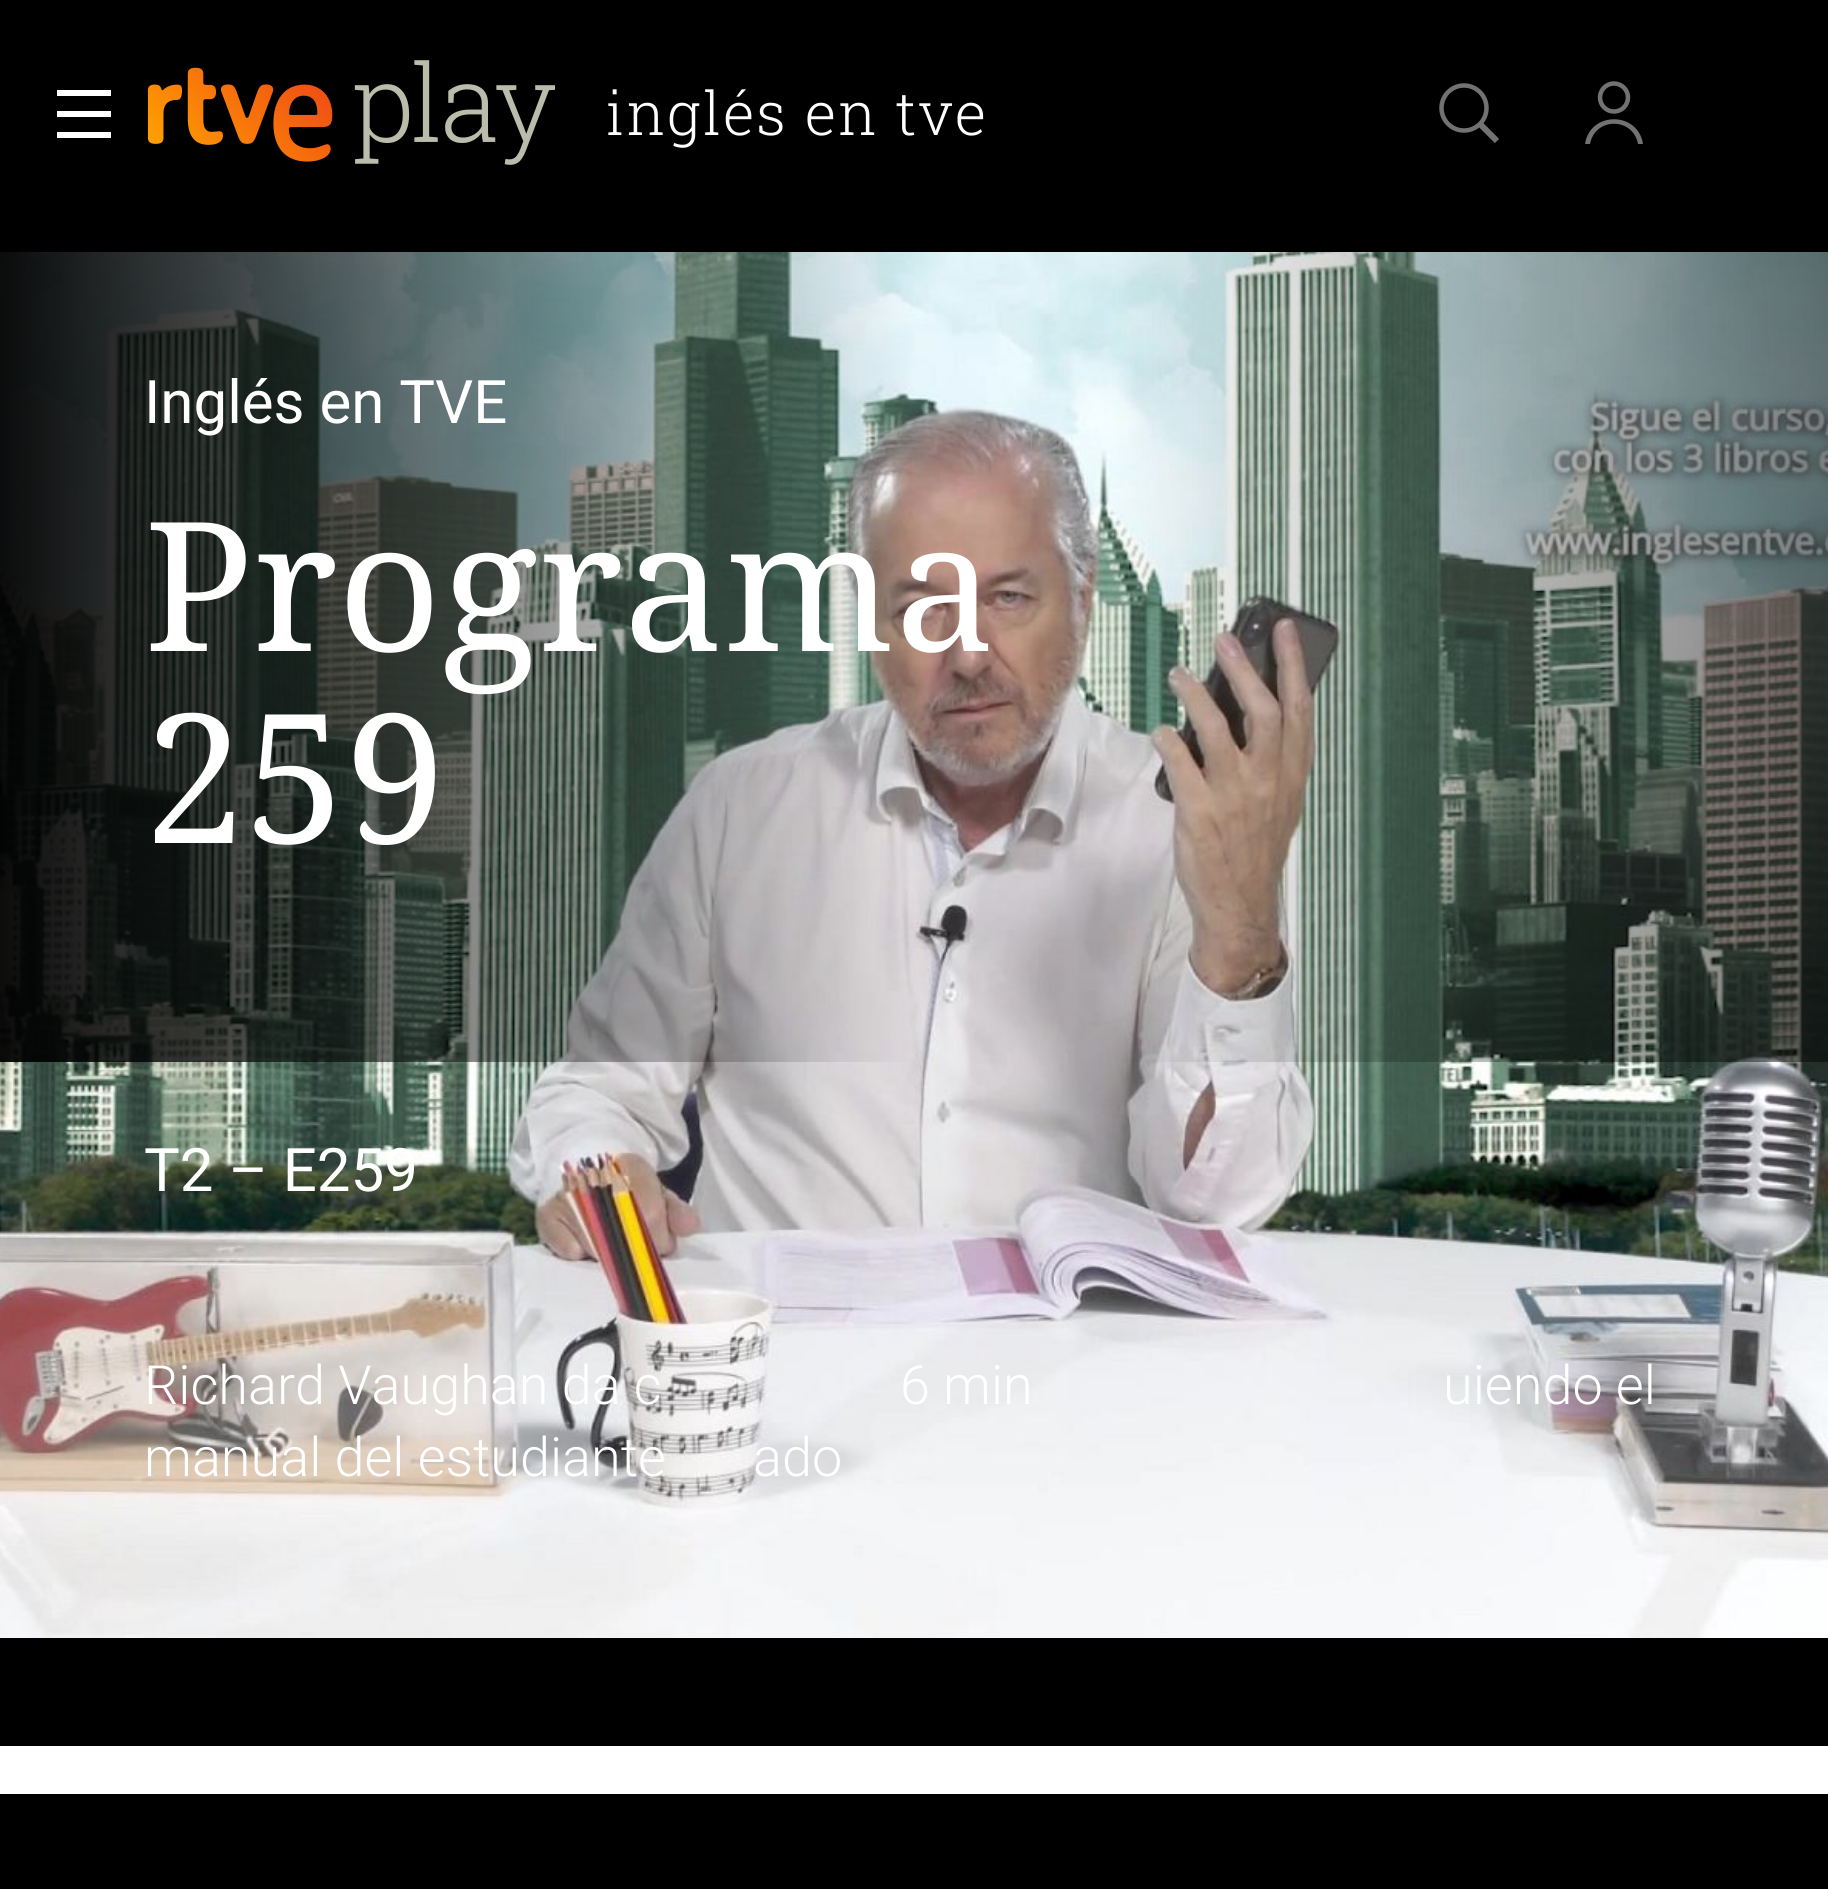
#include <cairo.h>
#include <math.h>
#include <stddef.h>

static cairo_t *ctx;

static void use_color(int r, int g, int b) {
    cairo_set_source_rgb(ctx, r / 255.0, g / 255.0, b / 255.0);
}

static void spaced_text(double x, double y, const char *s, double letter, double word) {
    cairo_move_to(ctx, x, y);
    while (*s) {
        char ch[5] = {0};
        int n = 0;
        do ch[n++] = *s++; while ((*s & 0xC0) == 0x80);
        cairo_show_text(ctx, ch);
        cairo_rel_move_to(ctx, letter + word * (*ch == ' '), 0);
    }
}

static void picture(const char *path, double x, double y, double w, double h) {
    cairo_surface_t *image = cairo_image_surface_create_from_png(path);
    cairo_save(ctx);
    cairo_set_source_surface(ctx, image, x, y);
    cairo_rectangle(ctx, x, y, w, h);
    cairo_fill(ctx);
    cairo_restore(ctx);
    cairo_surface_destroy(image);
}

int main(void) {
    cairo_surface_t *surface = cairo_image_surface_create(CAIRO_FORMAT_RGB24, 1828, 1889);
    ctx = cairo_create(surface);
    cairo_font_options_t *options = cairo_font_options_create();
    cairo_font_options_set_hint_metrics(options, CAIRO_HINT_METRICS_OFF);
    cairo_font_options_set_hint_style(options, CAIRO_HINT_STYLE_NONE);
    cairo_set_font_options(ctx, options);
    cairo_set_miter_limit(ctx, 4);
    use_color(0, 0, 0);
    cairo_paint(ctx);
    use_color(255, 255, 255);
    cairo_rectangle(ctx, 57, 90, 54, 6);
    cairo_fill(ctx);
    cairo_rectangle(ctx, 57, 111, 54, 6);
    cairo_fill(ctx);
    cairo_rectangle(ctx, 57, 132, 54, 6);
    cairo_fill(ctx);
    picture("img1.png", 147, 67, 186, 95);
    picture("img2.png", 354, 60, 201, 105);
    cairo_select_font_face(ctx, "Roboto Slab Light", CAIRO_FONT_SLANT_NORMAL, CAIRO_FONT_WEIGHT_NORMAL);
    cairo_set_font_size(ctx, 60);
    spaced_text(606, 135, "inglés en tve", 2, 0);
    cairo_new_path(ctx);
    cairo_arc(ctx, 1464, 108, 22.5, 0, 2 * M_PI);
    use_color(114, 114, 114);
    cairo_set_line_width(ctx, 4.5);
    cairo_stroke(ctx);
    cairo_new_path(ctx);
    cairo_move_to(ctx, 1480, 124);
    cairo_line_to(ctx, 1497, 141);
    cairo_set_line_width(ctx, 6);
    cairo_stroke(ctx);
    cairo_new_path(ctx);
    cairo_move_to(ctx, 1590, 144);
    cairo_curve_to(ctx, 1595, 117, 1633, 117, 1638, 144);
    cairo_line_to(ctx, 1643, 144);
    cairo_curve_to(ctx, 1638, 111, 1590, 111, 1585, 144);
    cairo_close_path(ctx);
    cairo_fill(ctx);
    cairo_arc(ctx, 1614, 97.5, 14, 0, 2 * M_PI);
    cairo_set_line_width(ctx, 4.5);
    cairo_stroke(ctx);
    picture("img3.png", 0, 252, 1828, 1386);
    cairo_select_font_face(ctx, "Roboto", CAIRO_FONT_SLANT_NORMAL, CAIRO_FONT_WEIGHT_NORMAL);
    use_color(255, 255, 255);
    cairo_move_to(ctx, 144, 423);
    cairo_show_text(ctx, "Inglés en TVE");
    cairo_select_font_face(ctx, "Noto Serif", CAIRO_FONT_SLANT_NORMAL, CAIRO_FONT_WEIGHT_NORMAL);
    cairo_set_font_size(ctx, 180);
    cairo_move_to(ctx, 144, 651);
    cairo_show_text(ctx, "Programa");
    cairo_move_to(ctx, 144, 843);
    cairo_show_text(ctx, "259");
    cairo_select_font_face(ctx, "Roboto", CAIRO_FONT_SLANT_NORMAL, CAIRO_FONT_WEIGHT_NORMAL);
    cairo_set_font_size(ctx, 60);
    cairo_move_to(ctx, 144, 1191);
    cairo_show_text(ctx, "T2 – E259");
    cairo_select_font_face(ctx, "Roboto Light", CAIRO_FONT_SLANT_NORMAL, CAIRO_FONT_WEIGHT_NORMAL);
    cairo_set_font_size(ctx, 54);
    cairo_move_to(ctx, 144, 1404);
    cairo_show_text(ctx, "Richard Vaughan da c");
    cairo_move_to(ctx, 900, 1404);
    cairo_show_text(ctx, "6 min");
    cairo_move_to(ctx, 1443, 1404);
    cairo_show_text(ctx, "uiendo el");
    cairo_move_to(ctx, 144, 1476);
    cairo_show_text(ctx, "manual del estudiante");
    cairo_move_to(ctx, 753, 1476);
    cairo_show_text(ctx, "ado");
    cairo_rectangle(ctx, 0, 1746, 1828, 48);
    cairo_fill(ctx);
    cairo_surface_write_to_png(surface, "result.png");
    cairo_font_options_destroy(options);
    cairo_destroy(ctx);
    cairo_surface_destroy(surface);
    return 0;
}
